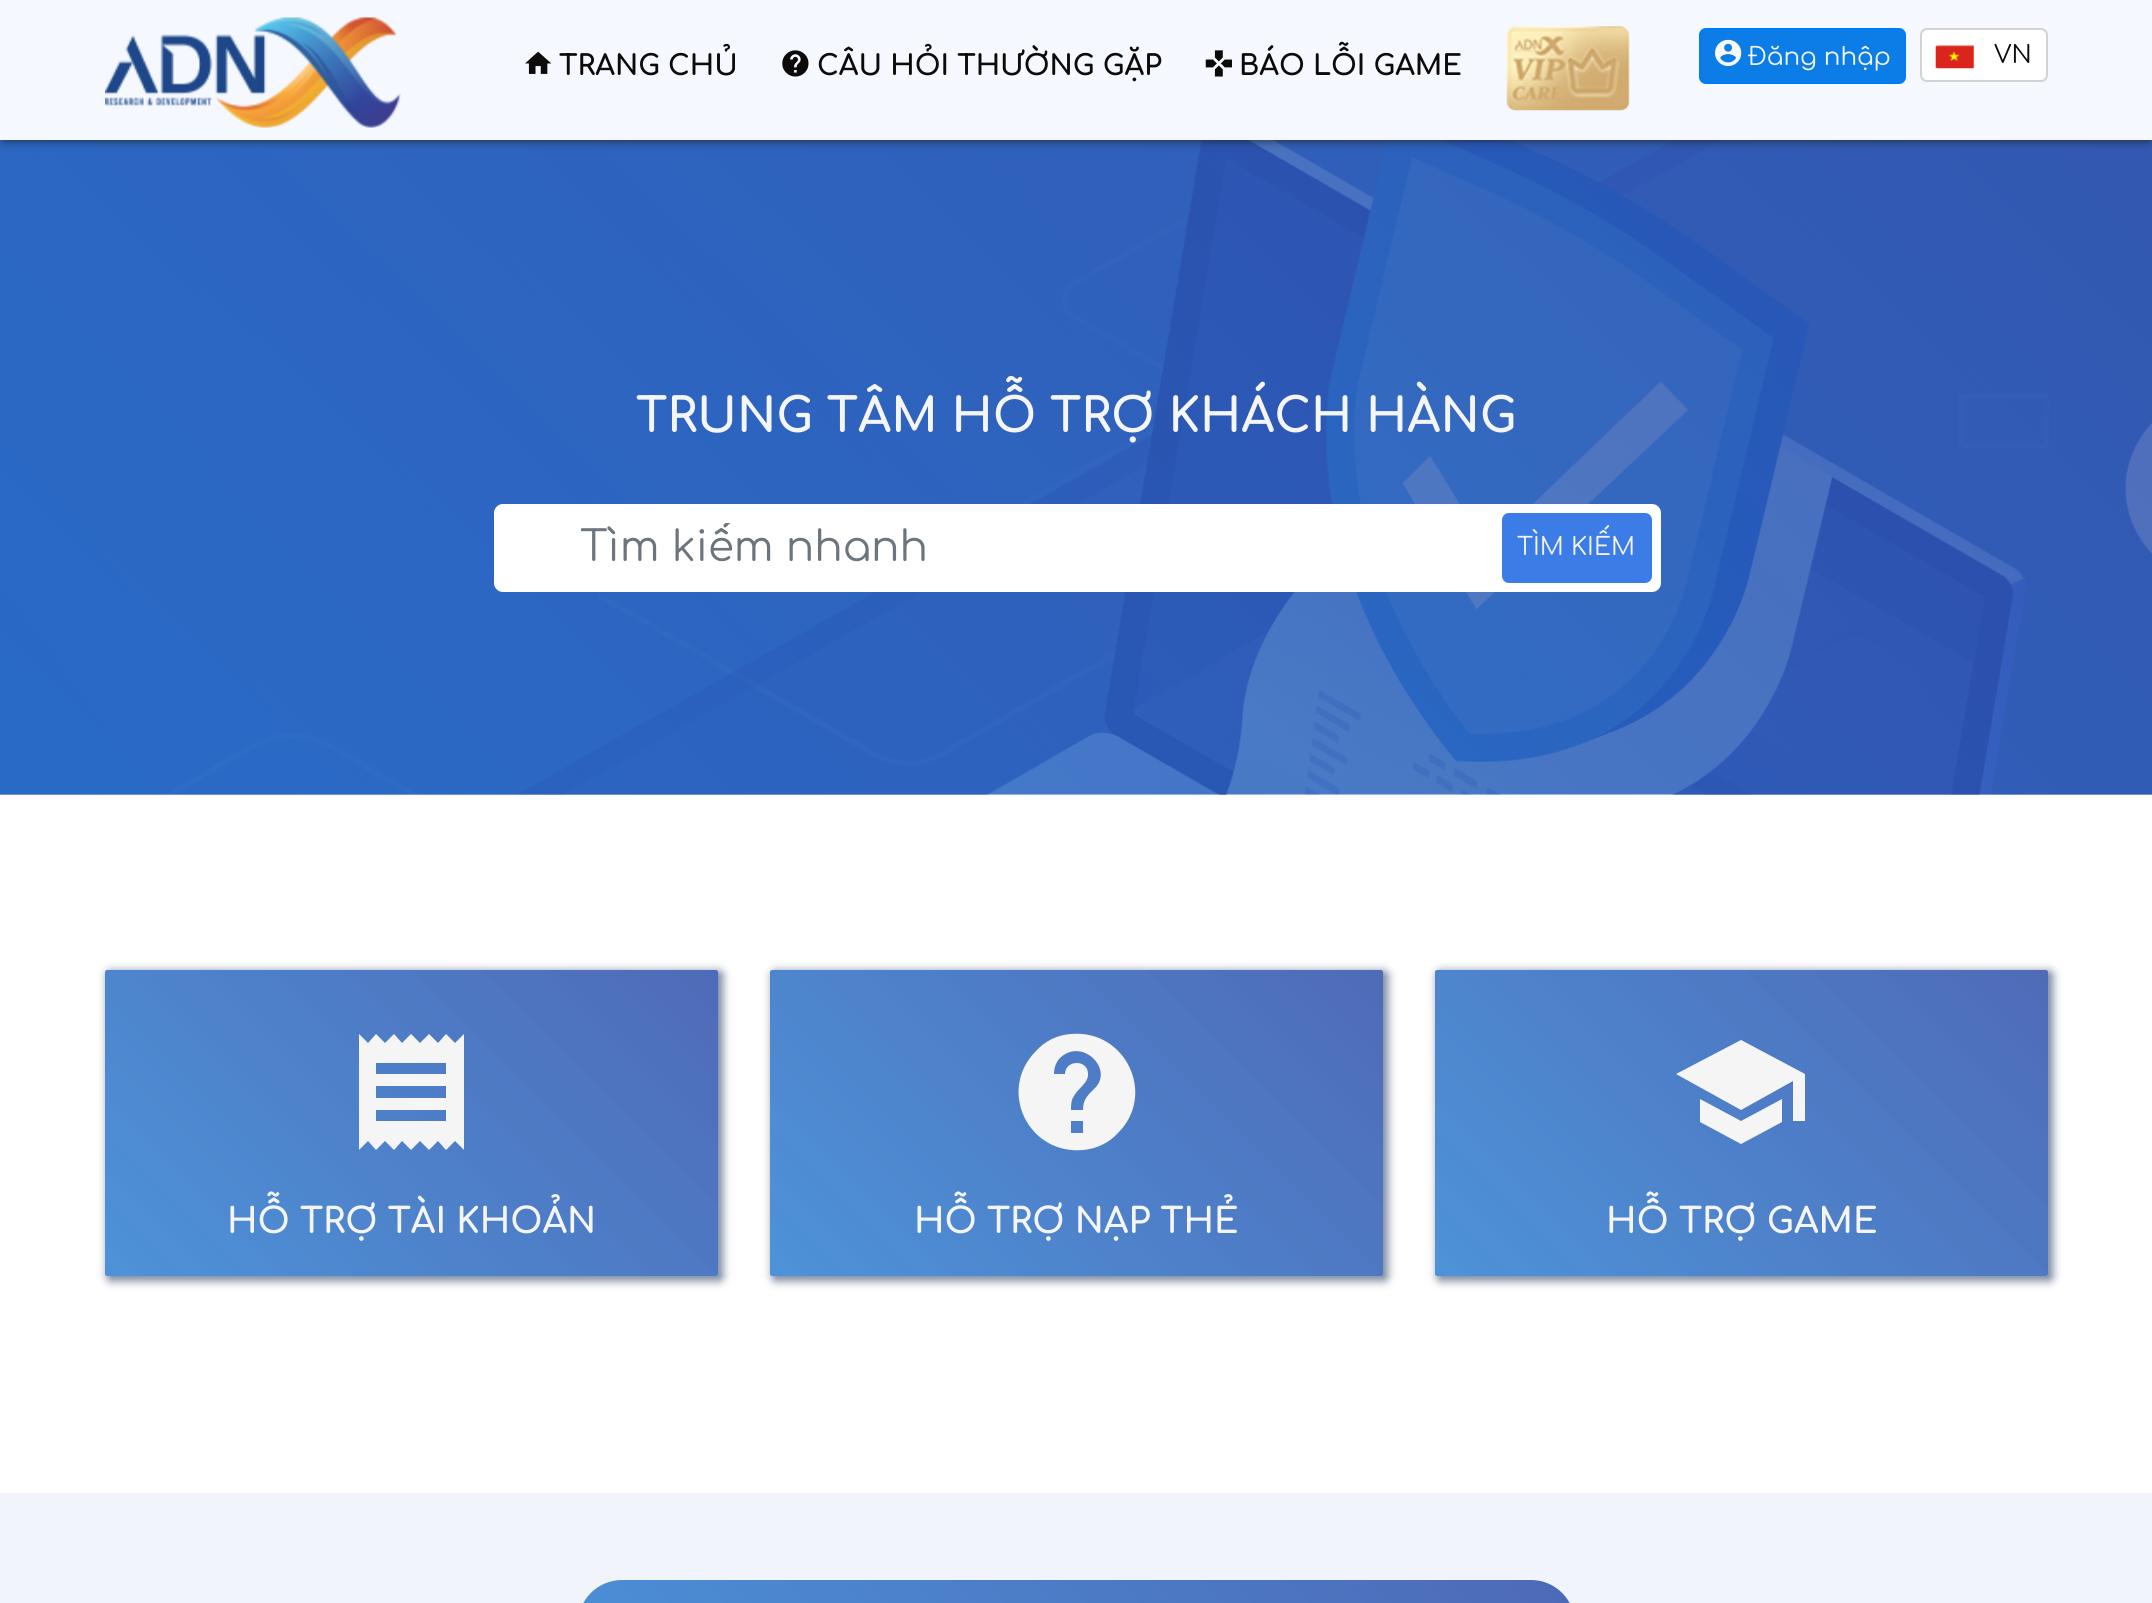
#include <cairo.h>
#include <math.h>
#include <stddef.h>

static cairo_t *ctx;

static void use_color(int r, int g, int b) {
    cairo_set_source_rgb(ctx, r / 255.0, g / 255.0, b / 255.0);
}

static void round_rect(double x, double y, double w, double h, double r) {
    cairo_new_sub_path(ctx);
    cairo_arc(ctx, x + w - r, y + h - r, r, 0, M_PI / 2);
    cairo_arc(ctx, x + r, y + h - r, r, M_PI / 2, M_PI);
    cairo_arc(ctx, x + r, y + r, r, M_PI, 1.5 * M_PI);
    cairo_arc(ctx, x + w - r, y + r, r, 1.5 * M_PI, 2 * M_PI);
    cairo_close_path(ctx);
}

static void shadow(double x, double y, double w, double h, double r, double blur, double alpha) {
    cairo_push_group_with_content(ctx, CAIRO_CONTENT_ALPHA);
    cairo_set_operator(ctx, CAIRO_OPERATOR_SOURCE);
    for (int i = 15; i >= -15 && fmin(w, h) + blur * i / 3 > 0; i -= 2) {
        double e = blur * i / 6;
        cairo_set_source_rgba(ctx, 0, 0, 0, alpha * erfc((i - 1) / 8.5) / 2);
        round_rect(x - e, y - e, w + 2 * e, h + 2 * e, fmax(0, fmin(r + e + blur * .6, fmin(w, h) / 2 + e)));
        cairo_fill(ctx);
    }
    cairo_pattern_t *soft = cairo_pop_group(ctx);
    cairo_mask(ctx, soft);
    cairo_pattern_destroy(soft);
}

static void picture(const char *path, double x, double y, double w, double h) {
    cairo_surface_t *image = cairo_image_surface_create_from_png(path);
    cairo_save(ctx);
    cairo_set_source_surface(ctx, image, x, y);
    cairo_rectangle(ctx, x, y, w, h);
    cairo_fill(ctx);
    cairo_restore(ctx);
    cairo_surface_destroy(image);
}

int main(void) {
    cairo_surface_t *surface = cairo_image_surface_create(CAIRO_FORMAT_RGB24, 2152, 1603);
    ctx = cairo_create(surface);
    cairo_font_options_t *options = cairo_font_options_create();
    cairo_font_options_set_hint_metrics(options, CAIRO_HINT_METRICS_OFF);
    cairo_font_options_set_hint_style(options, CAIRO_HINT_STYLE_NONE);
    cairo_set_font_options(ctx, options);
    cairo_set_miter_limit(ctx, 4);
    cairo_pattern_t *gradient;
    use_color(255, 255, 255);
    cairo_paint(ctx);
    picture("img8.png", 0, 140, 2152, 655);
    use_color(29, 29, 29);
    shadow(4, 7, 2145, 133, 0, 5, 0.9);
    use_color(245, 249, 255);
    cairo_rectangle(ctx, 0, 0, 2152, 140);
    cairo_fill(ctx);
    picture("img1.png", 105, 17, 296, 111);
    picture("img2.png", 525, 51, 27, 23);
    cairo_select_font_face(ctx, "Comfortaa", CAIRO_FONT_SLANT_NORMAL, CAIRO_FONT_WEIGHT_BOLD);
    cairo_set_font_size(ctx, 28);
    use_color(13, 10, 10);
    cairo_move_to(ctx, 559, 75);
    cairo_show_text(ctx, "TRANG CHỦ");
    picture("img3.png", 782, 50, 27, 27);
    cairo_move_to(ctx, 817, 75);
    cairo_show_text(ctx, "CÂU HỎI THƯỜNG GẶP");
    picture("img4.png", 1205, 50, 27, 27);
    cairo_move_to(ctx, 1239, 75);
    cairo_show_text(ctx, "BÁO LỖI GAME");
    picture("img5.png", 1506, 26, 124, 85);
    use_color(12, 124, 230);
    round_rect(1700, 29, 205, 54, 6);
    cairo_fill_preserve(ctx);
    use_color(0, 123, 255);
    cairo_stroke(ctx);
    picture("img6.png", 1715, 39, 27, 27);
    cairo_select_font_face(ctx, "Comfortaa", CAIRO_FONT_SLANT_NORMAL, CAIRO_FONT_WEIGHT_NORMAL);
    cairo_set_font_size(ctx, 24.5);
    use_color(245, 245, 245);
    cairo_move_to(ctx, 1748, 65);
    cairo_show_text(ctx, "Đăng nhập");
    use_color(255, 255, 255);
    round_rect(1921, 29, 126, 52, 6);
    cairo_fill_preserve(ctx);
    use_color(211, 211, 211);
    cairo_stroke(ctx);
    picture("img7.png", 1935, 45, 40, 24);
    use_color(13, 10, 10);
    cairo_move_to(ctx, 1994, 63);
    cairo_show_text(ctx, "VN");
    cairo_select_font_face(ctx, "Comfortaa", CAIRO_FONT_SLANT_NORMAL, CAIRO_FONT_WEIGHT_BOLD);
    cairo_set_font_size(ctx, 47.25);
    use_color(245, 245, 245);
    cairo_move_to(ctx, 636, 432);
    cairo_show_text(ctx, "TRUNG TÂM HỖ TRỢ KHÁCH HÀNG");
    use_color(255, 255, 255);
    round_rect(494, 504, 1167, 88, 9);
    cairo_fill(ctx);
    cairo_save(ctx);
    cairo_rectangle(ctx, 581, 523, 1080, 48);
    cairo_clip(ctx);
    cairo_select_font_face(ctx, "Comfortaa", CAIRO_FONT_SLANT_NORMAL, CAIRO_FONT_WEIGHT_NORMAL);
    cairo_set_font_size(ctx, 42);
    use_color(108, 117, 125);
    cairo_move_to(ctx, 580, 561);
    cairo_show_text(ctx, "Tìm kiếm nhanh");
    cairo_restore(ctx);
    use_color(59, 124, 230);
    round_rect(1502, 513, 150, 70, 7);
    cairo_fill(ctx);
    cairo_select_font_face(ctx, "Comfortaa", CAIRO_FONT_SLANT_NORMAL, CAIRO_FONT_WEIGHT_NORMAL);
    cairo_set_font_size(ctx, 24.5);
    use_color(245, 245, 245);
    cairo_move_to(ctx, 1517, 555);
    cairo_show_text(ctx, "TÌM KIẾM");
    cairo_save(ctx);
    cairo_set_fill_rule(ctx, CAIRO_FILL_RULE_EVEN_ODD);
    cairo_new_path(ctx);
    cairo_move_to(ctx, 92, 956);
    cairo_line_to(ctx, 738, 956);
    cairo_line_to(ctx, 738, 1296);
    cairo_line_to(ctx, 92, 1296);
    cairo_close_path(ctx);
    cairo_move_to(ctx, 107, 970);
    cairo_line_to(ctx, 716, 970);
    cairo_curve_to(ctx, 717, 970, 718, 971, 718, 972);
    cairo_line_to(ctx, 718, 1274);
    cairo_curve_to(ctx, 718, 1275, 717, 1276, 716, 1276);
    cairo_line_to(ctx, 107, 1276);
    cairo_curve_to(ctx, 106, 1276, 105, 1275, 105, 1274);
    cairo_line_to(ctx, 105, 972);
    cairo_curve_to(ctx, 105, 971, 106, 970, 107, 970);
    cairo_close_path(ctx);
    cairo_clip(ctx);
    use_color(121, 134, 158);
    shadow(107, 971, 616, 310, 4, 4.5, 1);
    cairo_restore(ctx);
    gradient = cairo_pattern_create_linear(182, 1352, 641, 893);
    cairo_pattern_add_color_stop_rgba(gradient, 0, 0.129, 0.467, 0.808, 0.8);
    cairo_pattern_add_color_stop_rgba(gradient, 1, 0.188, 0.314, 0.671, 0.85);
    cairo_set_source(ctx, gradient);
    cairo_pattern_destroy(gradient);
    round_rect(105, 970, 613, 306, 2);
    cairo_fill(ctx);
    use_color(245, 245, 245);
    cairo_new_path(ctx);
    cairo_move_to(ctx, 446, 1121);
    cairo_line_to(ctx, 446, 1110);
    cairo_line_to(ctx, 376, 1110);
    cairo_line_to(ctx, 376, 1121);
    cairo_close_path(ctx);
    cairo_move_to(ctx, 446, 1098);
    cairo_line_to(ctx, 446, 1086);
    cairo_line_to(ctx, 376, 1086);
    cairo_line_to(ctx, 376, 1098);
    cairo_close_path(ctx);
    cairo_move_to(ctx, 446, 1074);
    cairo_line_to(ctx, 446, 1063);
    cairo_line_to(ctx, 376, 1063);
    cairo_line_to(ctx, 376, 1074);
    cairo_close_path(ctx);
    cairo_move_to(ctx, 359, 1150);
    cairo_line_to(ctx, 359, 1034);
    cairo_line_to(ctx, 368, 1043);
    cairo_line_to(ctx, 376, 1034);
    cairo_line_to(ctx, 385, 1043);
    cairo_line_to(ctx, 394, 1034);
    cairo_line_to(ctx, 402, 1043);
    cairo_line_to(ctx, 411, 1034);
    cairo_line_to(ctx, 420, 1043);
    cairo_line_to(ctx, 429, 1034);
    cairo_line_to(ctx, 438, 1043);
    cairo_line_to(ctx, 446, 1034);
    cairo_line_to(ctx, 455, 1043);
    cairo_line_to(ctx, 464, 1034);
    cairo_line_to(ctx, 464, 1150);
    cairo_line_to(ctx, 455, 1141);
    cairo_line_to(ctx, 446, 1150);
    cairo_line_to(ctx, 438, 1141);
    cairo_line_to(ctx, 429, 1150);
    cairo_line_to(ctx, 420, 1141);
    cairo_line_to(ctx, 411, 1150);
    cairo_line_to(ctx, 402, 1141);
    cairo_line_to(ctx, 394, 1150);
    cairo_line_to(ctx, 385, 1141);
    cairo_line_to(ctx, 376, 1150);
    cairo_line_to(ctx, 368, 1141);
    cairo_close_path(ctx);
    cairo_fill(ctx);
    cairo_select_font_face(ctx, "Comfortaa", CAIRO_FONT_SLANT_NORMAL, CAIRO_FONT_WEIGHT_BOLD);
    cairo_set_font_size(ctx, 35);
    cairo_move_to(ctx, 227, 1233);
    cairo_show_text(ctx, "HỖ TRỢ TÀI KHOẢN");
    cairo_save(ctx);
    cairo_set_fill_rule(ctx, CAIRO_FILL_RULE_EVEN_ODD);
    cairo_new_path(ctx);
    cairo_move_to(ctx, 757, 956);
    cairo_line_to(ctx, 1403, 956);
    cairo_line_to(ctx, 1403, 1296);
    cairo_line_to(ctx, 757, 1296);
    cairo_close_path(ctx);
    cairo_move_to(ctx, 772, 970);
    cairo_line_to(ctx, 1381, 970);
    cairo_curve_to(ctx, 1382, 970, 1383, 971, 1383, 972);
    cairo_line_to(ctx, 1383, 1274);
    cairo_curve_to(ctx, 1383, 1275, 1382, 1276, 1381, 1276);
    cairo_line_to(ctx, 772, 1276);
    cairo_curve_to(ctx, 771, 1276, 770, 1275, 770, 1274);
    cairo_line_to(ctx, 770, 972);
    cairo_curve_to(ctx, 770, 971, 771, 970, 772, 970);
    cairo_close_path(ctx);
    cairo_clip(ctx);
    use_color(121, 134, 158);
    shadow(772, 971, 616, 310, 4, 4.5, 1);
    cairo_restore(ctx);
    gradient = cairo_pattern_create_linear(847, 1352, 1306, 893);
    cairo_pattern_add_color_stop_rgba(gradient, 0, 0.129, 0.467, 0.808, 0.8);
    cairo_pattern_add_color_stop_rgba(gradient, 1, 0.188, 0.314, 0.671, 0.85);
    cairo_set_source(ctx, gradient);
    cairo_pattern_destroy(gradient);
    round_rect(770, 970, 613, 306, 2);
    cairo_fill(ctx);
    use_color(245, 245, 245);
    cairo_new_path(ctx);
    cairo_move_to(ctx, 1036, 1051);
    cairo_curve_to(ctx, 1045, 1041, 1057, 1035, 1071, 1034);
    cairo_curve_to(ctx, 1125, 1029, 1157, 1094, 1118, 1133);
    cairo_curve_to(ctx, 1109, 1143, 1096, 1149, 1083, 1150);
    cairo_curve_to(ctx, 1028, 1155, 997, 1090, 1036, 1051);
    cairo_close_path(ctx);
    cairo_move_to(ctx, 1083, 1133);
    cairo_line_to(ctx, 1083, 1121);
    cairo_line_to(ctx, 1071, 1121);
    cairo_line_to(ctx, 1071, 1133);
    cairo_close_path(ctx);
    cairo_move_to(ctx, 1095, 1088);
    cairo_curve_to(ctx, 1114, 1069, 1082, 1037, 1060, 1058);
    cairo_curve_to(ctx, 1056, 1062, 1054, 1068, 1054, 1074);
    cairo_line_to(ctx, 1065, 1074);
    cairo_curve_to(ctx, 1065, 1060, 1087, 1059, 1088, 1073);
    cairo_curve_to(ctx, 1089, 1083, 1078, 1088, 1074, 1096);
    cairo_curve_to(ctx, 1071, 1100, 1071, 1105, 1071, 1110);
    cairo_line_to(ctx, 1083, 1110);
    cairo_curve_to(ctx, 1083, 1099, 1088, 1095, 1095, 1088);
    cairo_close_path(ctx);
    cairo_fill(ctx);
    cairo_move_to(ctx, 914, 1233);
    cairo_show_text(ctx, "HỖ TRỢ NẠP THẺ");
    cairo_save(ctx);
    cairo_set_fill_rule(ctx, CAIRO_FILL_RULE_EVEN_ODD);
    cairo_new_path(ctx);
    cairo_move_to(ctx, 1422, 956);
    cairo_line_to(ctx, 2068, 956);
    cairo_line_to(ctx, 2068, 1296);
    cairo_line_to(ctx, 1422, 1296);
    cairo_close_path(ctx);
    cairo_move_to(ctx, 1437, 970);
    cairo_line_to(ctx, 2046, 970);
    cairo_curve_to(ctx, 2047, 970, 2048, 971, 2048, 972);
    cairo_line_to(ctx, 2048, 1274);
    cairo_curve_to(ctx, 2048, 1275, 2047, 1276, 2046, 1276);
    cairo_line_to(ctx, 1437, 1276);
    cairo_curve_to(ctx, 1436, 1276, 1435, 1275, 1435, 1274);
    cairo_line_to(ctx, 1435, 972);
    cairo_curve_to(ctx, 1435, 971, 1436, 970, 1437, 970);
    cairo_close_path(ctx);
    cairo_clip(ctx);
    use_color(121, 134, 158);
    shadow(1437, 971, 616, 310, 4, 4.5, 1);
    cairo_restore(ctx);
    gradient = cairo_pattern_create_linear(1512, 1352, 1971, 893);
    cairo_pattern_add_color_stop_rgba(gradient, 0, 0.129, 0.467, 0.808, 0.8);
    cairo_pattern_add_color_stop_rgba(gradient, 1, 0.188, 0.314, 0.671, 0.85);
    cairo_set_source(ctx, gradient);
    cairo_pattern_destroy(gradient);
    round_rect(1435, 970, 613, 306, 2);
    cairo_fill(ctx);
    use_color(245, 245, 245);
    cairo_new_path(ctx);
    cairo_move_to(ctx, 1700, 1099);
    cairo_line_to(ctx, 1741, 1121);
    cairo_line_to(ctx, 1782, 1099);
    cairo_line_to(ctx, 1782, 1122);
    cairo_line_to(ctx, 1741, 1144);
    cairo_line_to(ctx, 1700, 1122);
    cairo_close_path(ctx);
    cairo_move_to(ctx, 1741, 1040);
    cairo_line_to(ctx, 1805, 1074);
    cairo_line_to(ctx, 1805, 1121);
    cairo_line_to(ctx, 1793, 1121);
    cairo_line_to(ctx, 1793, 1081);
    cairo_line_to(ctx, 1741, 1110);
    cairo_line_to(ctx, 1676, 1074);
    cairo_close_path(ctx);
    cairo_fill(ctx);
    cairo_move_to(ctx, 1606, 1233);
    cairo_show_text(ctx, "HỖ TRỢ GAME");
    use_color(241, 244, 251);
    cairo_rectangle(ctx, 0, 1493, 2152, 110);
    cairo_fill(ctx);
    gradient = cairo_pattern_create_linear(805, 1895, 1348, 1353);
    cairo_pattern_add_color_stop_rgba(gradient, 0, 0.294, 0.565, 0.843, 1);
    cairo_pattern_add_color_stop_rgba(gradient, 1, 0.302, 0.412, 0.718, 1);
    cairo_set_source(ctx, gradient);
    cairo_pattern_destroy(gradient);
    round_rect(578, 1580, 997, 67, 44);
    cairo_fill(ctx);
    cairo_surface_write_to_png(surface, "result.png");
    cairo_font_options_destroy(options);
    cairo_destroy(ctx);
    cairo_surface_destroy(surface);
    return 0;
}
